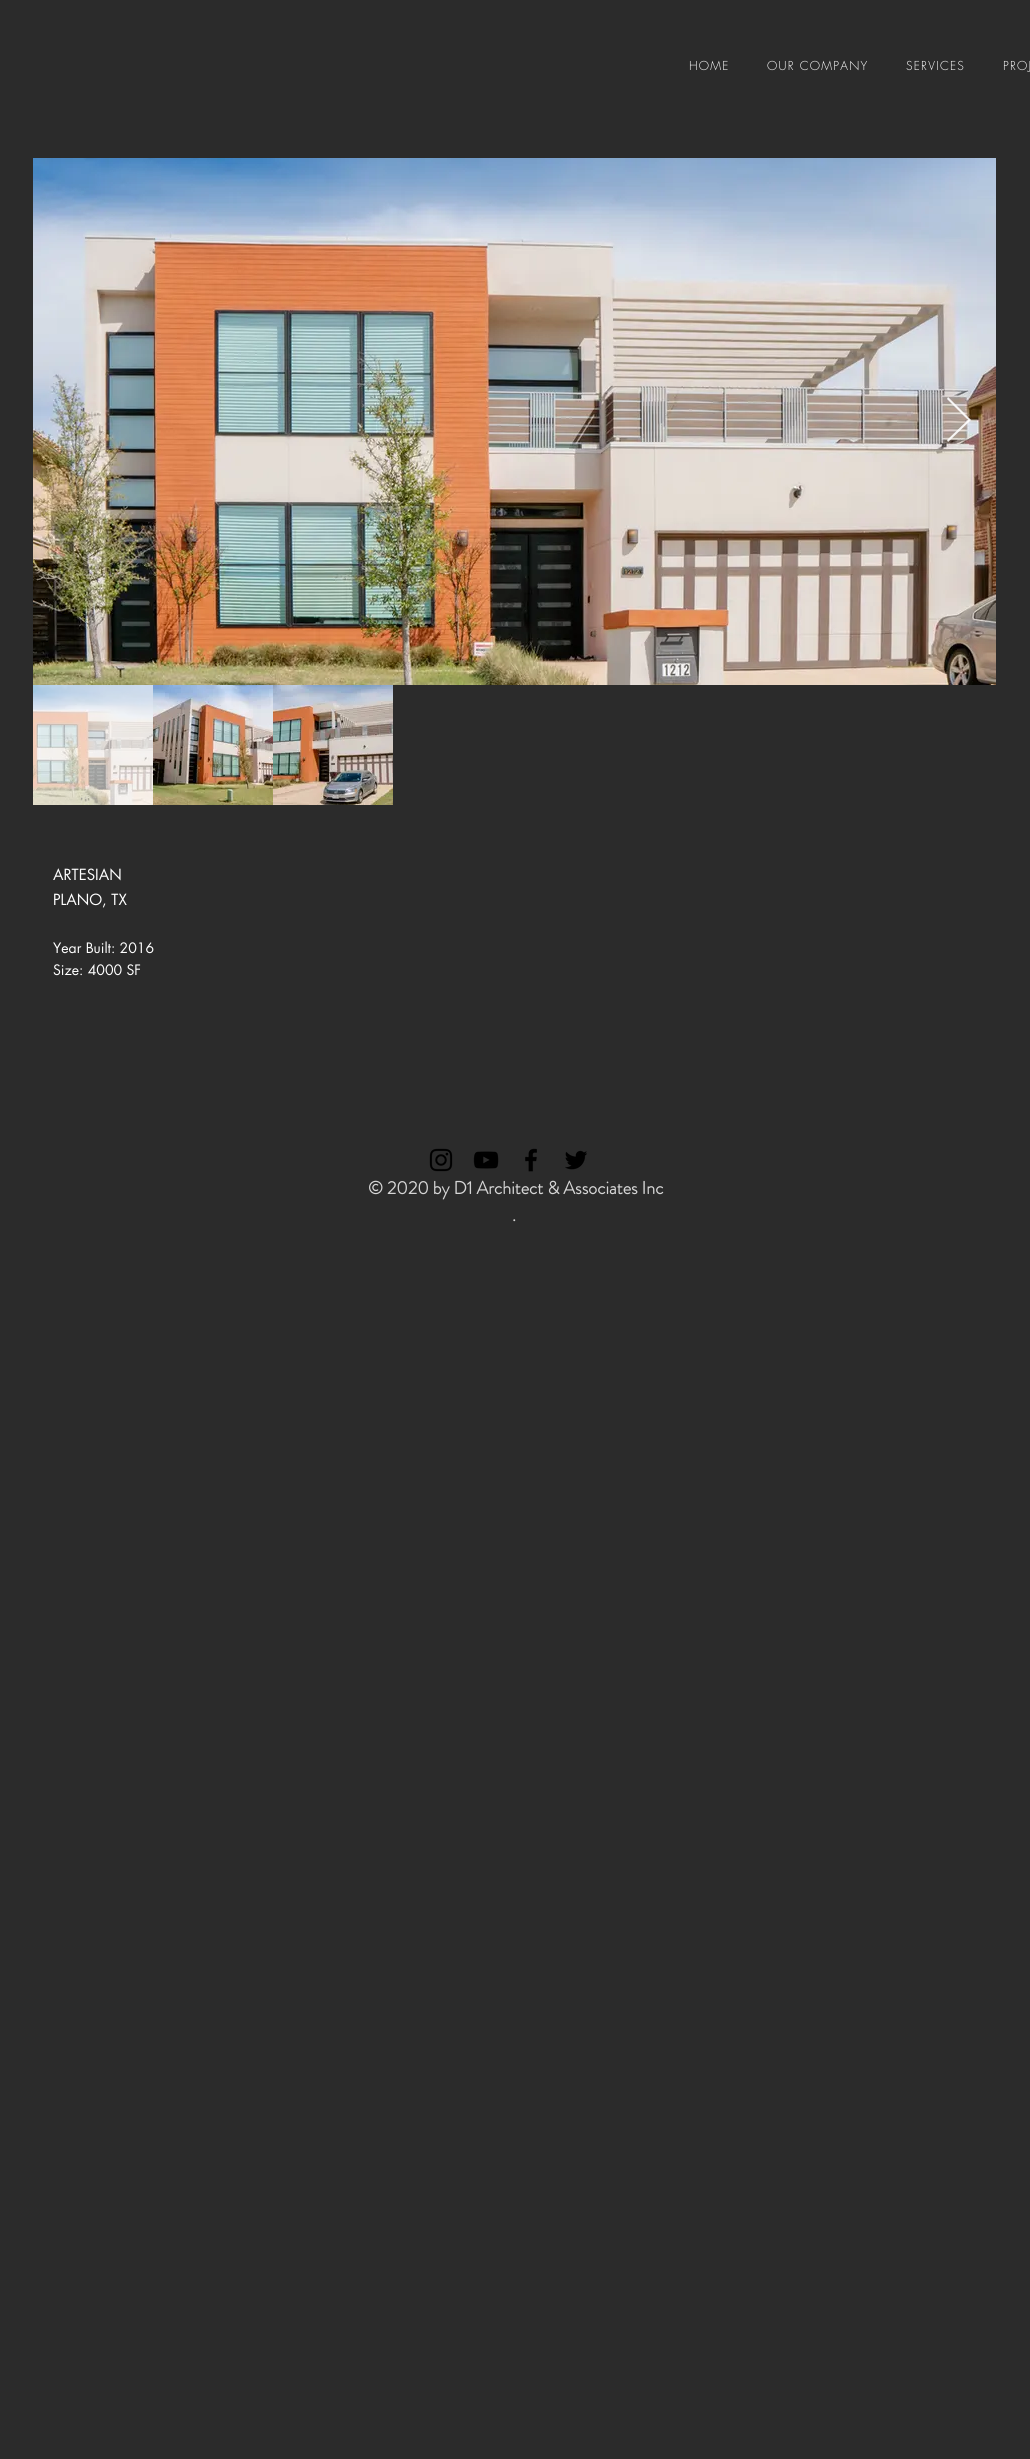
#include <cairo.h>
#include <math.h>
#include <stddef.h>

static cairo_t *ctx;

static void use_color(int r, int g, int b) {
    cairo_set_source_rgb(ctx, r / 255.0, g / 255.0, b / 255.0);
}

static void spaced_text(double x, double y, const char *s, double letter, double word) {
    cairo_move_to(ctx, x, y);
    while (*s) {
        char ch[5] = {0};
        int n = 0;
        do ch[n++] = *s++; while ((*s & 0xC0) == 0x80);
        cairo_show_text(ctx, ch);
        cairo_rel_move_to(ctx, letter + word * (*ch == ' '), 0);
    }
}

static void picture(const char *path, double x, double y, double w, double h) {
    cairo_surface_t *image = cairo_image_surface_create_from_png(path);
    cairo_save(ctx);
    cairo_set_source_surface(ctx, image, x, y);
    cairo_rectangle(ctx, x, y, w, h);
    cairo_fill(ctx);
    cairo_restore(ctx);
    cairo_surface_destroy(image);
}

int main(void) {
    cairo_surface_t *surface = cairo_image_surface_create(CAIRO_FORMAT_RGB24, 1030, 2459);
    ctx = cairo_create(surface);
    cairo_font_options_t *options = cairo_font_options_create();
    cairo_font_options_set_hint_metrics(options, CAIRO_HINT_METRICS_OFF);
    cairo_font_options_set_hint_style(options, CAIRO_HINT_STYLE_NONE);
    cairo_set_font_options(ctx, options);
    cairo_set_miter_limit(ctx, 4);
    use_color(43, 43, 43);
    cairo_paint(ctx);
    cairo_select_font_face(ctx, "futura Light", CAIRO_FONT_SLANT_NORMAL, CAIRO_FONT_WEIGHT_NORMAL);
    cairo_set_font_size(ctx, 12);
    use_color(255, 255, 255);
    spaced_text(689, 70, "HOME", 1.25, 0);
    spaced_text(767, 70, "OUR COMPANY", 1.25, 0);
    spaced_text(906, 70, "SERVICES", 1.25, 0);
    spaced_text(1003, 70, "PROJ", 1.25, 0);
    picture("img1.png", 33, 158, 963, 527);
    cairo_set_source_rgba(ctx, 1, 1, 1, 0.9);
    cairo_new_path(ctx);
    cairo_move_to(ctx, 947, 399);
    cairo_line_to(ctx, 948, 397);
    cairo_line_to(ctx, 971, 420);
    cairo_line_to(ctx, 948, 442);
    cairo_line_to(ctx, 947, 440);
    cairo_line_to(ctx, 968, 420);
    cairo_close_path(ctx);
    cairo_fill(ctx);
    picture("img2.png", 33, 685, 120, 120);
    picture("img3.png", 153, 685, 120, 120);
    picture("img4.png", 273, 685, 120, 120);
    cairo_select_font_face(ctx, "futura", CAIRO_FONT_SLANT_NORMAL, CAIRO_FONT_WEIGHT_NORMAL);
    cairo_set_font_size(ctx, 15);
    use_color(255, 255, 255);
    cairo_move_to(ctx, 53, 880);
    cairo_show_text(ctx, "ARTESIAN");
    cairo_move_to(ctx, 53, 905);
    cairo_show_text(ctx, "PLANO, TX");
    cairo_set_font_size(ctx, 14);
    cairo_move_to(ctx, 53, 953);
    cairo_show_text(ctx, "Year Built: 2016");
    cairo_move_to(ctx, 53, 975);
    cairo_show_text(ctx, "Size: 4000 SF");
    picture("img5.png", 429, 1148, 24, 24);
    picture("img6.png", 473, 1151, 26, 18);
    picture("img7.png", 525, 1148, 12, 24);
    picture("img8.png", 565, 1150, 22, 20);
    cairo_select_font_face(ctx, "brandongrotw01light", CAIRO_FONT_SLANT_NORMAL, CAIRO_FONT_WEIGHT_BOLD);
    cairo_set_font_size(ctx, 18);
    use_color(213, 213, 213);
    cairo_move_to(ctx, 368, 1194);
    cairo_show_text(ctx, "© 2020 by D1 Architect & Associates Inc");
    cairo_move_to(ctx, 512, 1221);
    cairo_show_text(ctx, ".");
    cairo_surface_write_to_png(surface, "result.png");
    cairo_font_options_destroy(options);
    cairo_destroy(ctx);
    cairo_surface_destroy(surface);
    return 0;
}
